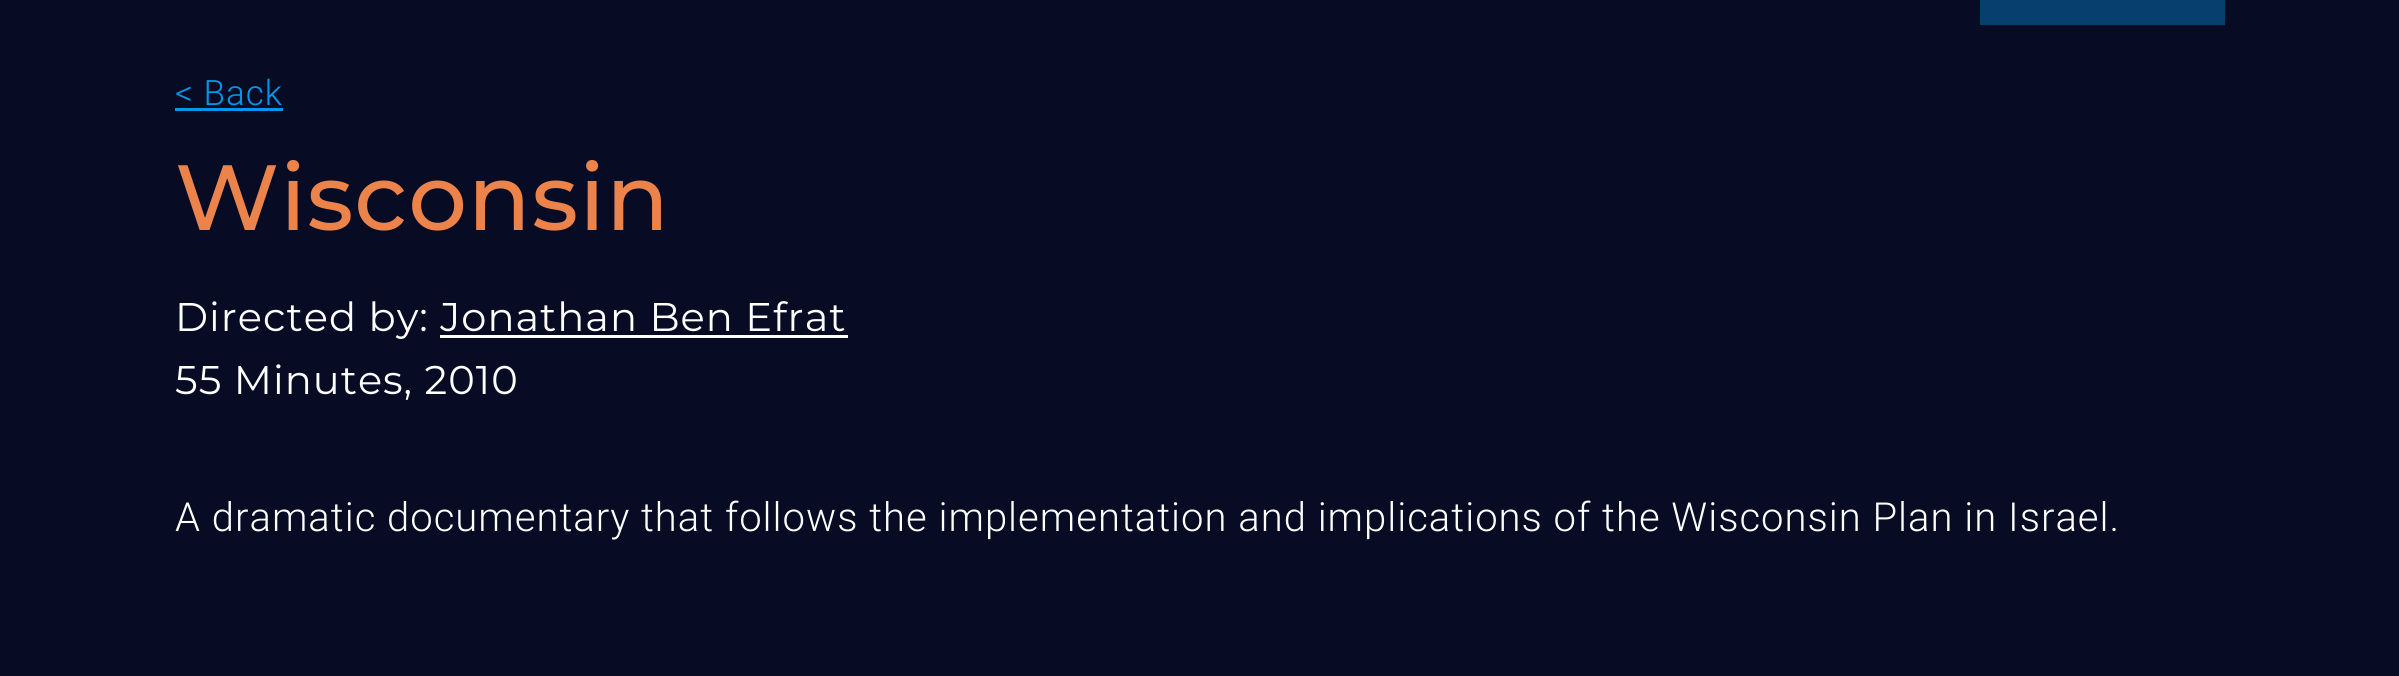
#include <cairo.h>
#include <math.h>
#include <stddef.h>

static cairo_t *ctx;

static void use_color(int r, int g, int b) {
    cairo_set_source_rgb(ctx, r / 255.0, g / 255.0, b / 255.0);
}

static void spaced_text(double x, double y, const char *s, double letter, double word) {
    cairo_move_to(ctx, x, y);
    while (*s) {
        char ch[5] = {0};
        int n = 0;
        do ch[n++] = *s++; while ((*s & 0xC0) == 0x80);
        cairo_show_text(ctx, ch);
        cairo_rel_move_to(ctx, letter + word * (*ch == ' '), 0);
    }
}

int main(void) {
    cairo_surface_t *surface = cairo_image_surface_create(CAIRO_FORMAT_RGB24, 2399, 676);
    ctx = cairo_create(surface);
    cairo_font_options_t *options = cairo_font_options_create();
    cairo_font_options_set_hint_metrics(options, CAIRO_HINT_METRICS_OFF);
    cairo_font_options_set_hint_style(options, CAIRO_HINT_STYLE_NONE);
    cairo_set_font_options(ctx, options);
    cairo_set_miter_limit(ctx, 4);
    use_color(7, 12, 36);
    cairo_paint(ctx);
    use_color(7, 64, 111);
    cairo_rectangle(ctx, 1980, 0, 245, 25);
    cairo_fill(ctx);
    cairo_select_font_face(ctx, "Roboto Light", CAIRO_FONT_SLANT_NORMAL, CAIRO_FONT_WEIGHT_NORMAL);
    cairo_set_font_size(ctx, 35);
    use_color(0, 151, 234);
    spaced_text(175, 105, "< Back", 1, 0);
    cairo_rectangle(ctx, 175, 108, 108, 3);
    cairo_fill(ctx);
    cairo_select_font_face(ctx, "Montserrat Medium", CAIRO_FONT_SLANT_NORMAL, CAIRO_FONT_WEIGHT_NORMAL);
    cairo_set_font_size(ctx, 92.5);
    use_color(236, 131, 75);
    spaced_text(175, 230, "Wisconsin", 1, 0);
    cairo_select_font_face(ctx, "Montserrat", CAIRO_FONT_SLANT_NORMAL, CAIRO_FONT_WEIGHT_NORMAL);
    cairo_set_font_size(ctx, 40);
    use_color(255, 255, 255);
    spaced_text(175, 331, "Directed by: Jonathan Ben Efrat", 1, 0);
    cairo_rectangle(ctx, 440, 335, 408, 3);
    cairo_fill(ctx);
    spaced_text(175, 394, "55 Minutes, 2010", 1, 0);
    cairo_select_font_face(ctx, "Roboto Light", CAIRO_FONT_SLANT_NORMAL, CAIRO_FONT_WEIGHT_NORMAL);
    spaced_text(175, 531, "A dramatic documentary that follows the implementation and implications of the Wisconsin Plan in Israel.", 1, 0);
    cairo_surface_write_to_png(surface, "result.png");
    cairo_font_options_destroy(options);
    cairo_destroy(ctx);
    cairo_surface_destroy(surface);
    return 0;
}
